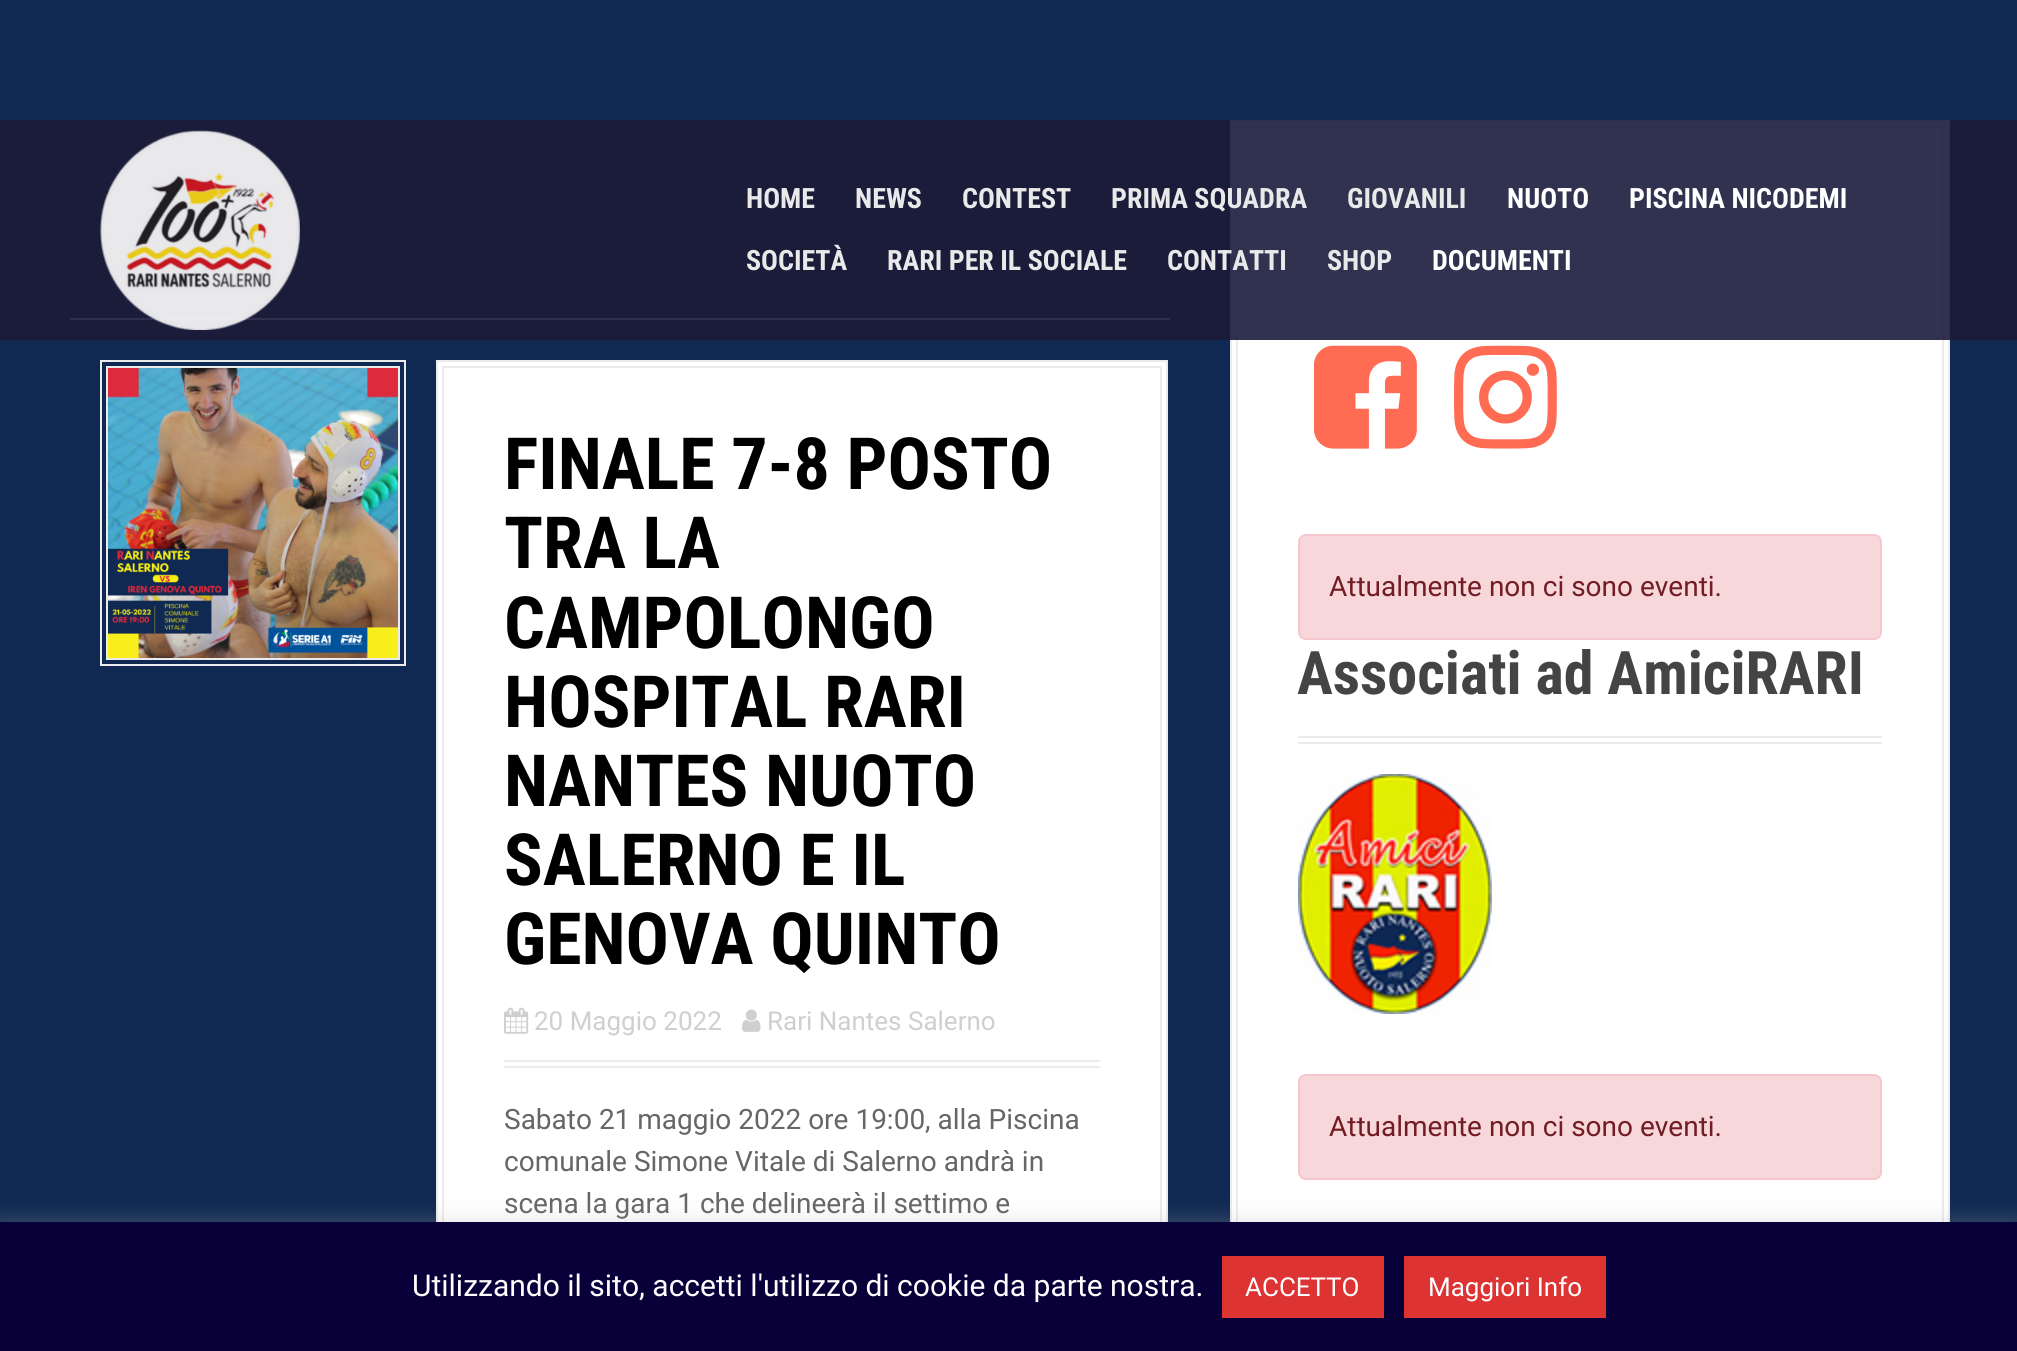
#include <cairo.h>
#include <math.h>
#include <stddef.h>

static cairo_t *ctx;

static void use_color(int r, int g, int b) {
    cairo_set_source_rgb(ctx, r / 255.0, g / 255.0, b / 255.0);
}

static void round_rect(double x, double y, double w, double h, double r) {
    cairo_new_sub_path(ctx);
    cairo_arc(ctx, x + w - r, y + h - r, r, 0, M_PI / 2);
    cairo_arc(ctx, x + r, y + h - r, r, M_PI / 2, M_PI);
    cairo_arc(ctx, x + r, y + r, r, M_PI, 1.5 * M_PI);
    cairo_arc(ctx, x + w - r, y + r, r, 1.5 * M_PI, 2 * M_PI);
    cairo_close_path(ctx);
}

static void shadow(double x, double y, double w, double h, double r, double blur, double alpha) {
    cairo_push_group_with_content(ctx, CAIRO_CONTENT_ALPHA);
    cairo_set_operator(ctx, CAIRO_OPERATOR_SOURCE);
    for (int i = 15; i >= -15 && fmin(w, h) + blur * i / 3 > 0; i -= 2) {
        double e = blur * i / 6;
        cairo_set_source_rgba(ctx, 0, 0, 0, alpha * erfc((i - 1) / 8.5) / 2);
        round_rect(x - e, y - e, w + 2 * e, h + 2 * e, fmax(0, fmin(r + e + blur * .6, fmin(w, h) / 2 + e)));
        cairo_fill(ctx);
    }
    cairo_pattern_t *soft = cairo_pop_group(ctx);
    cairo_mask(ctx, soft);
    cairo_pattern_destroy(soft);
}

static void picture(const char *path, double x, double y, double w, double h) {
    cairo_surface_t *image = cairo_image_surface_create_from_png(path);
    cairo_save(ctx);
    cairo_set_source_surface(ctx, image, x, y);
    cairo_rectangle(ctx, x, y, w, h);
    cairo_fill(ctx);
    cairo_restore(ctx);
    cairo_surface_destroy(image);
}

int main(void) {
    cairo_surface_t *surface = cairo_image_surface_create(CAIRO_FORMAT_RGB24, 2017, 1351);
    ctx = cairo_create(surface);
    cairo_font_options_t *options = cairo_font_options_create();
    cairo_font_options_set_hint_metrics(options, CAIRO_HINT_METRICS_OFF);
    cairo_font_options_set_hint_style(options, CAIRO_HINT_STYLE_NONE);
    cairo_set_font_options(ctx, options);
    cairo_set_miter_limit(ctx, 4);
    use_color(16, 41, 82);
    cairo_paint(ctx);
    use_color(34, 34, 34);
    cairo_rectangle(ctx, 0, 120, 2017, 220);
    cairo_fill(ctx);
    use_color(238, 238, 238);
    cairo_rectangle(ctx, 70, 318, 1100, 2);
    cairo_fill(ctx);
    use_color(255, 255, 255);
    cairo_rectangle(ctx, 1232, 122, 716, 1100);
    cairo_fill(ctx);
    cairo_rectangle(ctx, 1231, 121, 718, 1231);
    use_color(235, 235, 235);
    cairo_stroke(ctx);
    cairo_rectangle(ctx, 1237, 127, 706, 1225);
    cairo_stroke(ctx);
    cairo_rectangle(ctx, 1298, 284, 584, 2);
    cairo_fill(ctx);
    cairo_rectangle(ctx, 1298, 290, 584, 2);
    cairo_fill(ctx);
    cairo_set_source_rgba(ctx, 0.106, 0.106, 0.239, 0.9);
    cairo_rectangle(ctx, 0, 120, 2017, 220);
    cairo_fill(ctx);
    picture("img1.png", 100, 130, 200, 200);
    cairo_select_font_face(ctx, "Roboto Condensed", CAIRO_FONT_SLANT_NORMAL, CAIRO_FONT_WEIGHT_BOLD);
    cairo_set_font_size(ctx, 28);
    use_color(233, 233, 233);
    cairo_move_to(ctx, 746, 208);
    cairo_show_text(ctx, "HOME");
    cairo_move_to(ctx, 855, 208);
    cairo_show_text(ctx, "NEWS");
    cairo_move_to(ctx, 962, 208);
    cairo_show_text(ctx, "CONTEST");
    cairo_move_to(ctx, 1111, 208);
    cairo_show_text(ctx, "PRIMA SQUADRA");
    cairo_move_to(ctx, 1347, 208);
    cairo_show_text(ctx, "GIOVANILI");
    use_color(255, 255, 255);
    cairo_move_to(ctx, 1507, 208);
    cairo_show_text(ctx, "NUOTO");
    cairo_move_to(ctx, 1629, 208);
    cairo_show_text(ctx, "PISCINA NICODEMI");
    use_color(233, 233, 233);
    cairo_move_to(ctx, 746, 270);
    cairo_show_text(ctx, "SOCIETÀ");
    cairo_move_to(ctx, 887, 270);
    cairo_show_text(ctx, "RARI PER IL SOCIALE");
    cairo_move_to(ctx, 1167, 270);
    cairo_show_text(ctx, "CONTATTI");
    cairo_move_to(ctx, 1327, 270);
    cairo_show_text(ctx, "SHOP");
    use_color(255, 255, 255);
    cairo_move_to(ctx, 1432, 270);
    cairo_show_text(ctx, "DOCUMENTI");
    cairo_rectangle(ctx, 101, 361, 304, 304);
    use_color(235, 235, 235);
    cairo_stroke(ctx);
    cairo_rectangle(ctx, 107, 367, 292, 292);
    cairo_stroke(ctx);
    picture("img2.png", 108, 368, 290, 290);
    use_color(255, 255, 255);
    cairo_rectangle(ctx, 438, 362, 728, 860);
    cairo_fill(ctx);
    cairo_rectangle(ctx, 437, 361, 730, 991);
    use_color(235, 235, 235);
    cairo_stroke(ctx);
    cairo_rectangle(ctx, 443, 367, 718, 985);
    cairo_stroke(ctx);
    cairo_rectangle(ctx, 504, 1060, 596, 2);
    cairo_fill(ctx);
    cairo_rectangle(ctx, 504, 1066, 596, 2);
    cairo_fill(ctx);
    cairo_set_font_size(ctx, 72);
    use_color(0, 0, 0);
    cairo_move_to(ctx, 504, 489);
    cairo_show_text(ctx, "FINALE 7-8 POSTO");
    cairo_move_to(ctx, 504, 568);
    cairo_show_text(ctx, "TRA LA");
    cairo_move_to(ctx, 504, 648);
    cairo_show_text(ctx, "CAMPOLONGO");
    cairo_move_to(ctx, 504, 727);
    cairo_show_text(ctx, "HOSPITAL RARI");
    cairo_move_to(ctx, 504, 806);
    cairo_show_text(ctx, "NANTES NUOTO");
    cairo_move_to(ctx, 504, 885);
    cairo_show_text(ctx, "SALERNO E IL");
    cairo_move_to(ctx, 504, 964);
    cairo_show_text(ctx, "GENOVA QUINTO");
    picture("img3.png", 504, 1007, 25, 27);
    cairo_select_font_face(ctx, "Roboto", CAIRO_FONT_SLANT_NORMAL, CAIRO_FONT_WEIGHT_NORMAL);
    cairo_set_font_size(ctx, 26);
    use_color(207, 207, 207);
    cairo_move_to(ctx, 534, 1030);
    cairo_show_text(ctx, "20 Maggio 2022");
    picture("img4.png", 742, 1009, 19, 23);
    cairo_move_to(ctx, 767, 1030);
    cairo_show_text(ctx, "Rari Nantes Salerno");
    cairo_set_font_size(ctx, 28);
    use_color(102, 102, 102);
    cairo_move_to(ctx, 504, 1129);
    cairo_show_text(ctx, "Sabato 21 maggio 2022 ore 19:00, alla Piscina");
    cairo_move_to(ctx, 504, 1171);
    cairo_show_text(ctx, "comunale Simone Vitale di Salerno andrà in");
    cairo_move_to(ctx, 504, 1213);
    cairo_show_text(ctx, "scena la gara 1 che delineerà il settimo e");
    picture("img5.png", 1314, 345, 103, 104);
    picture("img6.png", 1454, 345, 103, 104);
    use_color(248, 215, 218);
    round_rect(1299, 535, 582, 104, 7);
    cairo_fill_preserve(ctx);
    use_color(245, 198, 203);
    cairo_stroke(ctx);
    use_color(114, 28, 36);
    cairo_move_to(ctx, 1329, 596);
    cairo_show_text(ctx, "Attualmente non ci sono eventi.");
    use_color(235, 235, 235);
    cairo_rectangle(ctx, 1298, 736, 584, 2);
    cairo_fill(ctx);
    cairo_rectangle(ctx, 1298, 742, 584, 2);
    cairo_fill(ctx);
    cairo_select_font_face(ctx, "Roboto Condensed", CAIRO_FONT_SLANT_NORMAL, CAIRO_FONT_WEIGHT_BOLD);
    cairo_set_font_size(ctx, 60);
    use_color(68, 68, 68);
    cairo_move_to(ctx, 1297, 694);
    cairo_show_text(ctx, "Associati ad AmiciRARI");
    picture("img7.png", 1298, 774, 194, 240);
    use_color(248, 215, 218);
    round_rect(1299, 1075, 582, 104, 7);
    cairo_fill_preserve(ctx);
    use_color(245, 198, 203);
    cairo_stroke(ctx);
    cairo_select_font_face(ctx, "Roboto", CAIRO_FONT_SLANT_NORMAL, CAIRO_FONT_WEIGHT_NORMAL);
    cairo_set_font_size(ctx, 28);
    use_color(114, 28, 36);
    cairo_move_to(ctx, 1329, 1136);
    cairo_show_text(ctx, "Attualmente non ci sono eventi.");
    use_color(172, 171, 171);
    shadow(0, 1220, 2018, 130, 0, 10, 0.3);
    use_color(9, 0, 58);
    cairo_rectangle(ctx, 0, 1222, 2017, 129);
    cairo_fill(ctx);
    cairo_set_font_size(ctx, 30);
    use_color(255, 255, 255);
    cairo_move_to(ctx, 412, 1296);
    cairo_show_text(ctx, "Utilizzando il sito, accetti l'utilizzo di cookie da parte nostra.");
    use_color(221, 51, 51);
    cairo_rectangle(ctx, 1222, 1256, 162, 62);
    cairo_fill(ctx);
    cairo_set_font_size(ctx, 26);
    use_color(255, 255, 255);
    cairo_move_to(ctx, 1245, 1296);
    cairo_show_text(ctx, "ACCETTO");
    use_color(221, 51, 51);
    cairo_rectangle(ctx, 1404, 1256, 202, 62);
    cairo_fill(ctx);
    use_color(255, 255, 255);
    cairo_move_to(ctx, 1428, 1296);
    cairo_show_text(ctx, "Maggiori Info");
    cairo_surface_write_to_png(surface, "result.png");
    cairo_font_options_destroy(options);
    cairo_destroy(ctx);
    cairo_surface_destroy(surface);
    return 0;
}
